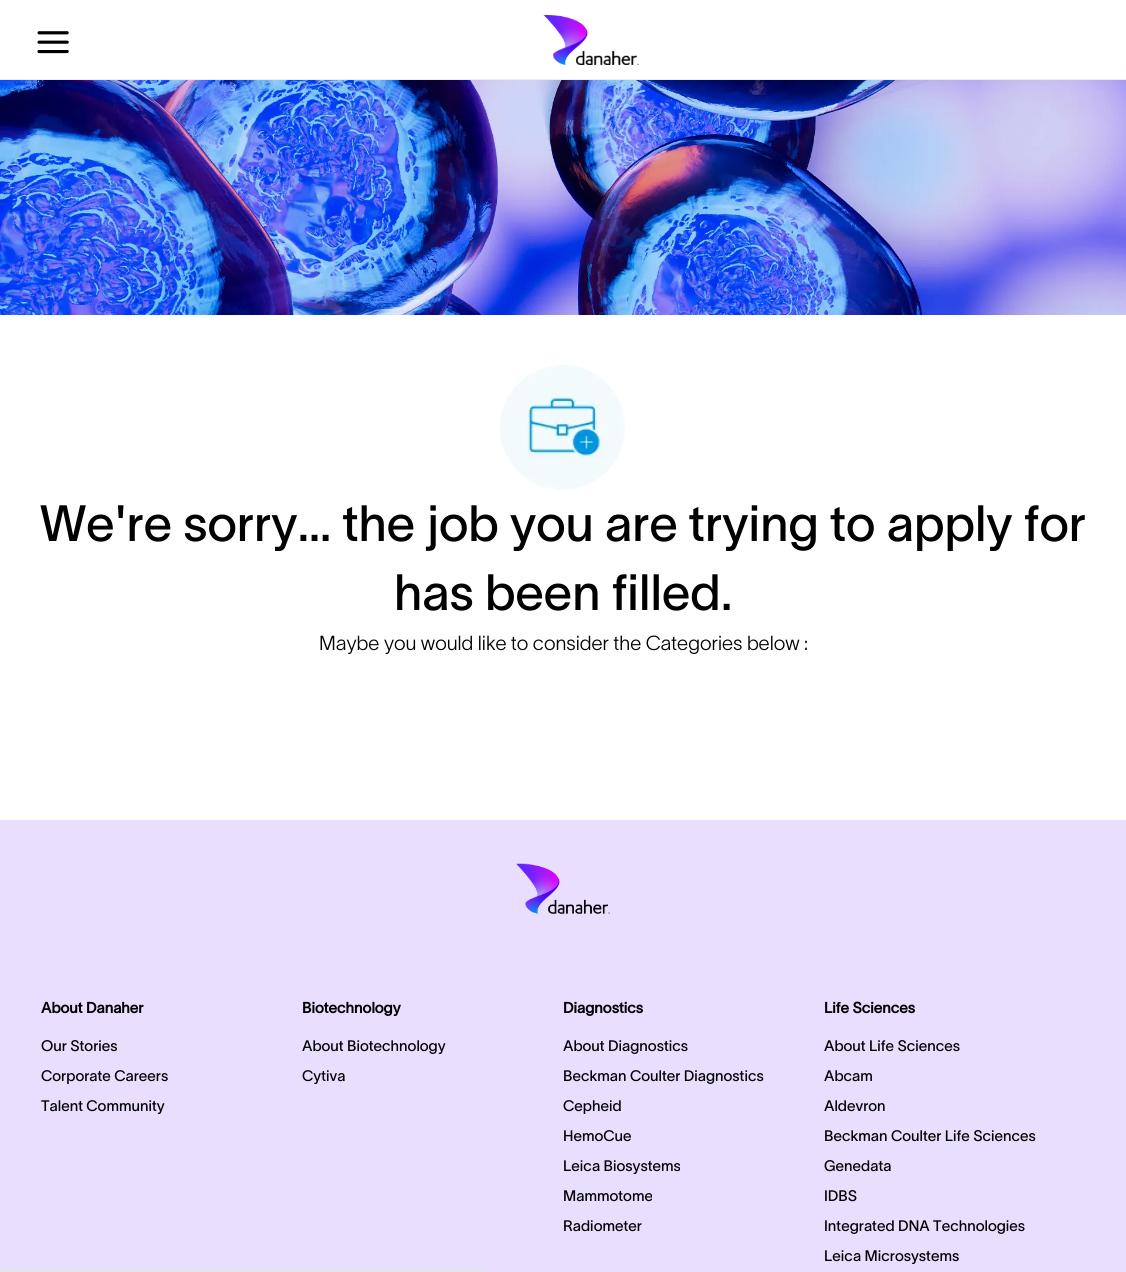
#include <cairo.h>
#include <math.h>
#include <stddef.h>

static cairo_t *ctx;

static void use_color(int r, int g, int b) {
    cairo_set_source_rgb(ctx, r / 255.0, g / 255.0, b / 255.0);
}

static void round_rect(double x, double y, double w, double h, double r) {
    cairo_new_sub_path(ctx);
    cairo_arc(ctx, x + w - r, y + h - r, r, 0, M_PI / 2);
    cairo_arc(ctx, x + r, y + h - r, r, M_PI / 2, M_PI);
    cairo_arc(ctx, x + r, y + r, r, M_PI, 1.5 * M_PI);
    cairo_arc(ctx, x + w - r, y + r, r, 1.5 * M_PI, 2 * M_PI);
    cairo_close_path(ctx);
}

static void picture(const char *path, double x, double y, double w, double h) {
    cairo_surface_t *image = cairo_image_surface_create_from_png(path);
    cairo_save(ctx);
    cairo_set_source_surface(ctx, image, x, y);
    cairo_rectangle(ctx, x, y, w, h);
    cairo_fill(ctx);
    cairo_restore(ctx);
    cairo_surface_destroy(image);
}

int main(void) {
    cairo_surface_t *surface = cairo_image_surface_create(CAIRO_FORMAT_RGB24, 1126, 1272);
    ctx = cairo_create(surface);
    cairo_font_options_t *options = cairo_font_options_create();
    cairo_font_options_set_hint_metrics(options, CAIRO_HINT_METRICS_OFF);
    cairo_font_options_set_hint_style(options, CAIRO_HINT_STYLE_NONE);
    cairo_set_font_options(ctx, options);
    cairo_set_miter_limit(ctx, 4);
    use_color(255, 255, 255);
    cairo_paint(ctx);
    use_color(232, 239, 245);
    cairo_rectangle(ctx, 0, 79, 1126, 1);
    cairo_fill(ctx);
    picture("img1.png", 37, 31, 32, 23);
    picture("img2.png", 543, 15, 96, 50);
    picture("img3.png", 0, 80, 1126, 235);
    picture("img4.png", 500, 365, 125, 125);
    cairo_select_font_face(ctx, "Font", CAIRO_FONT_SLANT_NORMAL, CAIRO_FONT_WEIGHT_NORMAL);
    cairo_set_font_size(ctx, 50);
    use_color(0, 0, 0);
    cairo_move_to(ctx, 40, 541);
    cairo_show_text(ctx, "We're sorry… the job you are trying to apply for");
    cairo_move_to(ctx, 394, 610);
    cairo_show_text(ctx, "has been filled.");
    cairo_select_font_face(ctx, "Font ExtraLight", CAIRO_FONT_SLANT_NORMAL, CAIRO_FONT_WEIGHT_NORMAL);
    cairo_set_font_size(ctx, 20);
    cairo_move_to(ctx, 319, 650);
    cairo_show_text(ctx, "Maybe you would like to consider the Categories below :");
    use_color(234, 222, 255);
    cairo_rectangle(ctx, 0, 820, 1126, 452);
    cairo_fill(ctx);
    use_color(228, 228, 228);
    round_rect(0, 1270, 485, 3, 1.5);
    cairo_fill(ctx);
    picture("img5.png", 516, 863, 94, 51);
    cairo_select_font_face(ctx, "Font", CAIRO_FONT_SLANT_NORMAL, CAIRO_FONT_WEIGHT_BOLD);
    cairo_set_font_size(ctx, 15);
    use_color(0, 0, 0);
    cairo_move_to(ctx, 41, 1013);
    cairo_show_text(ctx, "About Danaher");
    cairo_select_font_face(ctx, "Font", CAIRO_FONT_SLANT_NORMAL, CAIRO_FONT_WEIGHT_NORMAL);
    cairo_move_to(ctx, 41, 1051);
    cairo_show_text(ctx, "Our Stories");
    cairo_move_to(ctx, 41, 1081);
    cairo_show_text(ctx, "Corporate Careers");
    cairo_move_to(ctx, 41, 1111);
    cairo_show_text(ctx, "Talent Community");
    cairo_select_font_face(ctx, "Font", CAIRO_FONT_SLANT_NORMAL, CAIRO_FONT_WEIGHT_BOLD);
    cairo_move_to(ctx, 302, 1013);
    cairo_show_text(ctx, "Biotechnology");
    cairo_select_font_face(ctx, "Font", CAIRO_FONT_SLANT_NORMAL, CAIRO_FONT_WEIGHT_NORMAL);
    cairo_move_to(ctx, 302, 1051);
    cairo_show_text(ctx, "About Biotechnology");
    cairo_move_to(ctx, 302, 1081);
    cairo_show_text(ctx, "Cytiva");
    cairo_select_font_face(ctx, "Font", CAIRO_FONT_SLANT_NORMAL, CAIRO_FONT_WEIGHT_BOLD);
    cairo_move_to(ctx, 563, 1013);
    cairo_show_text(ctx, "Diagnostics");
    cairo_select_font_face(ctx, "Font", CAIRO_FONT_SLANT_NORMAL, CAIRO_FONT_WEIGHT_NORMAL);
    cairo_move_to(ctx, 563, 1051);
    cairo_show_text(ctx, "About Diagnostics");
    cairo_move_to(ctx, 563, 1081);
    cairo_show_text(ctx, "Beckman Coulter Diagnostics");
    cairo_move_to(ctx, 563, 1111);
    cairo_show_text(ctx, "Cepheid");
    cairo_move_to(ctx, 563, 1141);
    cairo_show_text(ctx, "HemoCue");
    cairo_move_to(ctx, 563, 1171);
    cairo_show_text(ctx, "Leica Biosystems");
    cairo_move_to(ctx, 563, 1201);
    cairo_show_text(ctx, "Mammotome");
    cairo_move_to(ctx, 563, 1231);
    cairo_show_text(ctx, "Radiometer");
    cairo_select_font_face(ctx, "Font", CAIRO_FONT_SLANT_NORMAL, CAIRO_FONT_WEIGHT_BOLD);
    cairo_move_to(ctx, 824, 1013);
    cairo_show_text(ctx, "Life Sciences");
    cairo_select_font_face(ctx, "Font", CAIRO_FONT_SLANT_NORMAL, CAIRO_FONT_WEIGHT_NORMAL);
    cairo_move_to(ctx, 824, 1051);
    cairo_show_text(ctx, "About Life Sciences");
    cairo_move_to(ctx, 824, 1081);
    cairo_show_text(ctx, "Abcam");
    cairo_move_to(ctx, 824, 1111);
    cairo_show_text(ctx, "Aldevron");
    cairo_move_to(ctx, 824, 1141);
    cairo_show_text(ctx, "Beckman Coulter Life Sciences");
    cairo_move_to(ctx, 824, 1171);
    cairo_show_text(ctx, "Genedata");
    cairo_move_to(ctx, 824, 1201);
    cairo_show_text(ctx, "IDBS");
    cairo_move_to(ctx, 824, 1231);
    cairo_show_text(ctx, "Integrated DNA Technologies");
    cairo_move_to(ctx, 824, 1261);
    cairo_show_text(ctx, "Leica Microsystems");
    cairo_surface_write_to_png(surface, "result.png");
    cairo_font_options_destroy(options);
    cairo_destroy(ctx);
    cairo_surface_destroy(surface);
    return 0;
}
